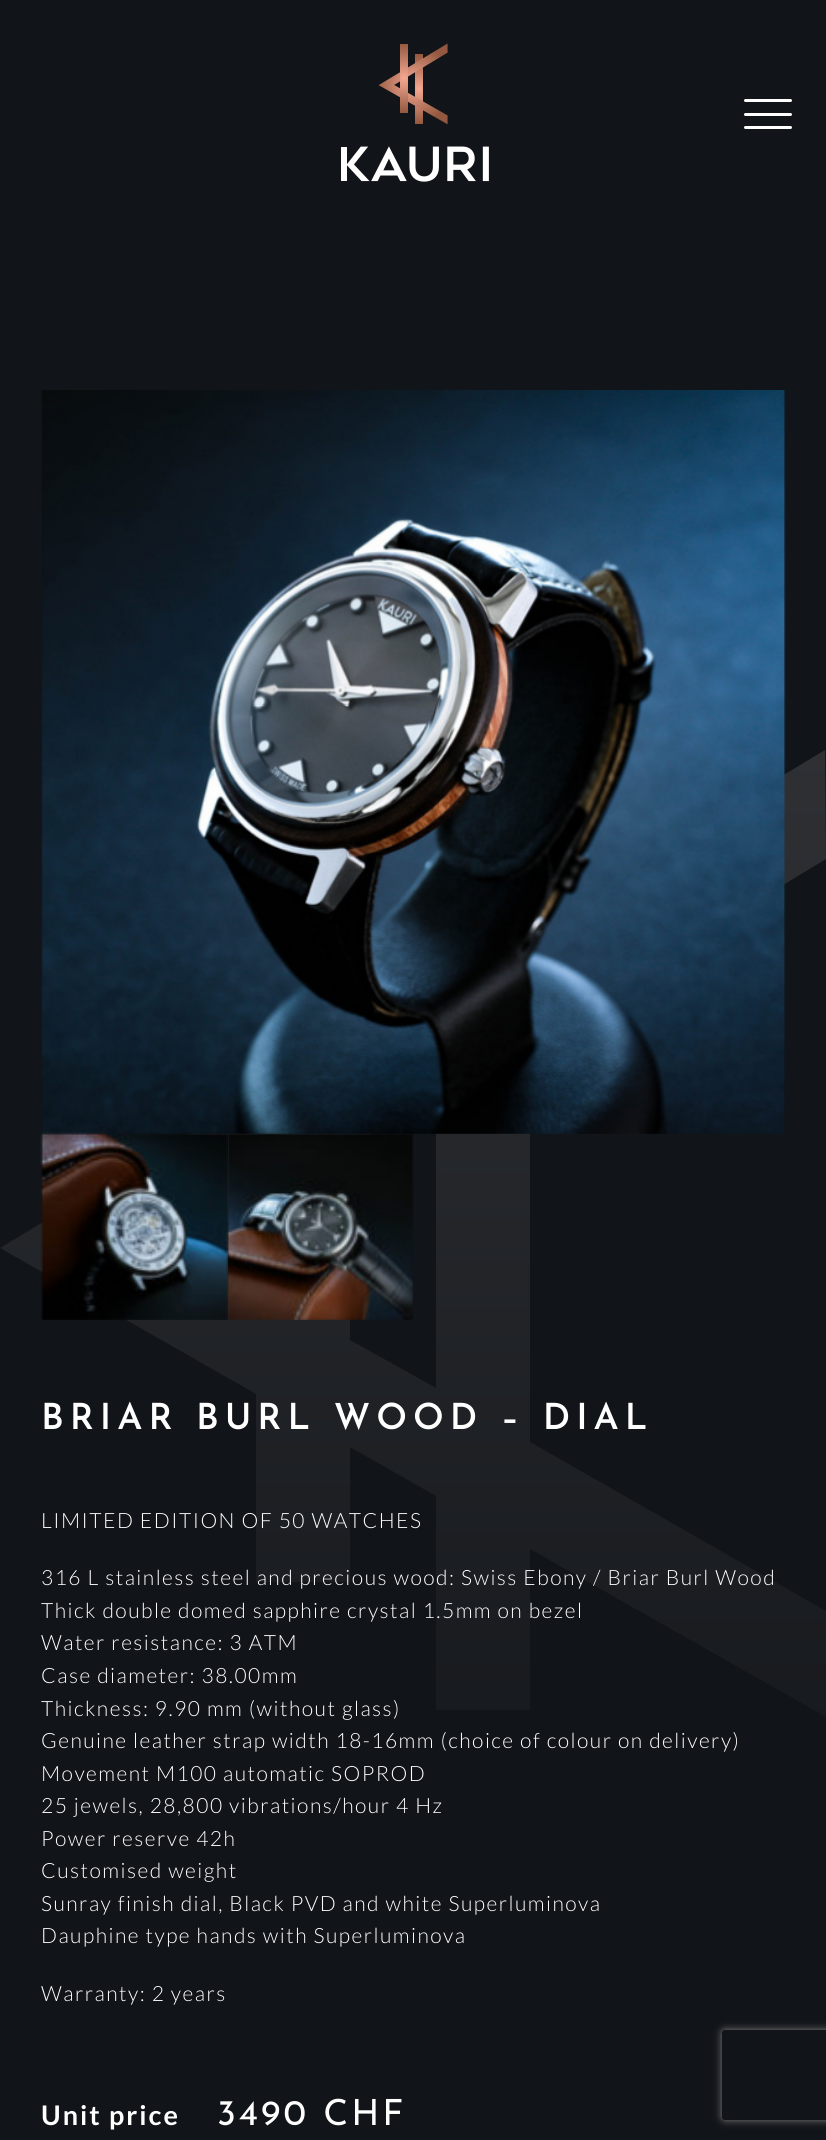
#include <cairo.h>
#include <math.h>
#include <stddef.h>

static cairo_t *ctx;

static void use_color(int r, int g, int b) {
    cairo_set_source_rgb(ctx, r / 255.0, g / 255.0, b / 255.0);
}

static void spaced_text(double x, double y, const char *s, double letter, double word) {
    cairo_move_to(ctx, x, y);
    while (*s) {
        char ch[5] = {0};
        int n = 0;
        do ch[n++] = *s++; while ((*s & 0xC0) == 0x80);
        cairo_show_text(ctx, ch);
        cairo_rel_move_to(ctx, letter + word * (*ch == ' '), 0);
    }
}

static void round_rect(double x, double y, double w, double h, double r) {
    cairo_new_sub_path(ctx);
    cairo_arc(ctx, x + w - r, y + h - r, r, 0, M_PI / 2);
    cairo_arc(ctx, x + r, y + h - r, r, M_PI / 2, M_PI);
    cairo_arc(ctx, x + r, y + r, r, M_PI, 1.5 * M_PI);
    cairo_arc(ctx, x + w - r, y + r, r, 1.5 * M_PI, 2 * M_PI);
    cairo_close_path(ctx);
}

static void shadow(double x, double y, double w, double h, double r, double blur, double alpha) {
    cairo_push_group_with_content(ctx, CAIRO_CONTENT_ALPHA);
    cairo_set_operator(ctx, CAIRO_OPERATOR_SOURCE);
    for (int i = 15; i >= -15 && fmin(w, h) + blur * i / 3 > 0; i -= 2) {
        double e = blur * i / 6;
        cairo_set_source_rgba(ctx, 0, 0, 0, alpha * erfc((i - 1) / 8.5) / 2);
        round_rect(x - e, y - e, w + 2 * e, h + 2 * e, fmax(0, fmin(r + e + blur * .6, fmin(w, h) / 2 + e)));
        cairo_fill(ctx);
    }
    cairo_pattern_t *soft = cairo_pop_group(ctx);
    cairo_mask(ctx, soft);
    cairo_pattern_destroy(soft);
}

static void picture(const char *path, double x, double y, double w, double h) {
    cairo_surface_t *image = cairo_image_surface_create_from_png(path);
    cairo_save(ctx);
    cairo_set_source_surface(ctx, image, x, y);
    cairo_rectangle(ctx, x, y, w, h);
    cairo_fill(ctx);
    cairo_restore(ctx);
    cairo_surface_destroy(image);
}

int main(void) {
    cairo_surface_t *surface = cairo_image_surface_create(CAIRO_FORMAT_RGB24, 826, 2140);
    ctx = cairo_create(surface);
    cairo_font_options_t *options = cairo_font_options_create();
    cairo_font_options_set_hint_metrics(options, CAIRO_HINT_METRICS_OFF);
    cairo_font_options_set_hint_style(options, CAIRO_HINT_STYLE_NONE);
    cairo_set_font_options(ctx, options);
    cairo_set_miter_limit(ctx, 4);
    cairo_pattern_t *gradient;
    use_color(17, 20, 24);
    cairo_paint(ctx);
    picture("img1.png", 341, 43, 148, 139);
    use_color(255, 255, 255);
    round_rect(744, 99, 48, 3, 1.5);
    cairo_fill(ctx);
    round_rect(744, 113, 48, 3, 1.5);
    cairo_fill(ctx);
    round_rect(744, 126, 48, 3, 1.5);
    cairo_fill(ctx);
    gradient = cairo_pattern_create_linear(398, 750, 398, 2004);
    cairo_pattern_add_color_stop_rgba(gradient, 0, 0.18, 0.188, 0.204, 1);
    cairo_pattern_add_color_stop_rgba(gradient, 1, 0.067, 0.078, 0.094, 1);
    cairo_set_source(ctx, gradient);
    cairo_pattern_destroy(gradient);
    cairo_set_fill_rule(ctx, CAIRO_FILL_RULE_EVEN_ODD);
    cairo_new_path(ctx);
    cairo_move_to(ctx, 350, 1037);
    cairo_line_to(ctx, 436, 985);
    cairo_line_to(ctx, 436, 880);
    cairo_line_to(ctx, 530, 880);
    cairo_line_to(ctx, 530, 928);
    cairo_line_to(ctx, 825, 750);
    cairo_line_to(ctx, 826, 859);
    cairo_line_to(ctx, 530, 1038);
    cairo_line_to(ctx, 530, 1442);
    cairo_line_to(ctx, 826, 1611);
    cairo_line_to(ctx, 826, 1717);
    cairo_line_to(ctx, 530, 1549);
    cairo_line_to(ctx, 530, 1710);
    cairo_line_to(ctx, 436, 1710);
    cairo_line_to(ctx, 436, 1496);
    cairo_line_to(ctx, 350, 1447);
    cairo_line_to(ctx, 350, 1582);
    cairo_line_to(ctx, 256, 1582);
    cairo_line_to(ctx, 256, 1394);
    cairo_line_to(ctx, 0, 1248);
    cairo_line_to(ctx, 256, 1094);
    cairo_line_to(ctx, 256, 752);
    cairo_line_to(ctx, 350, 752);
    cairo_close_path(ctx);
    cairo_move_to(ctx, 350, 1147);
    cairo_line_to(ctx, 350, 1340);
    cairo_line_to(ctx, 436, 1388);
    cairo_line_to(ctx, 436, 1095);
    cairo_close_path(ctx);
    cairo_move_to(ctx, 256, 1204);
    cairo_line_to(ctx, 186, 1246);
    cairo_line_to(ctx, 256, 1286);
    cairo_close_path(ctx);
    cairo_fill(ctx);
    picture("img2.png", 41, 390, 745, 744);
    picture("img3.png", 40, 1132, 188, 188);
    picture("img4.png", 226, 1132, 188, 188);
    cairo_select_font_face(ctx, "Josefin Sans SemiBold", CAIRO_FONT_SLANT_NORMAL, CAIRO_FONT_WEIGHT_NORMAL);
    cairo_set_font_size(ctx, 36);
    use_color(255, 255, 255);
    spaced_text(41, 1429, "BRIAR BURL WOOD – DIAL", 6, 0);
    cairo_select_font_face(ctx, "Lato Light", CAIRO_FONT_SLANT_NORMAL, CAIRO_FONT_WEIGHT_NORMAL);
    cairo_set_font_size(ctx, 21);
    spaced_text(41, 1528, "LIMITED EDITION OF 50 WATCHES", 1.47, 0);
    spaced_text(41, 1585, "316 L stainless steel and precious wood: Swiss Ebony / Briar Burl Wood", 1.47, 0);
    spaced_text(41, 1618, "Thick double domed sapphire crystal 1.5mm on bezel", 1.47, 0);
    spaced_text(41, 1650, "Water resistance: 3 ATM", 1.47, 0);
    spaced_text(41, 1683, "Case diameter: 38.00mm", 1.47, 0);
    spaced_text(41, 1716, "Thickness: 9.90 mm (without glass)", 1.47, 0);
    spaced_text(41, 1748, "Genuine leather strap width 18-16mm (choice of colour on delivery)", 1.47, 0);
    spaced_text(41, 1781, "Movement M100 automatic SOPROD", 1.47, 0);
    spaced_text(41, 1813, "25 jewels, 28,800 vibrations/hour 4 Hz", 1.47, 0);
    spaced_text(41, 1846, "Power reserve 42h", 1.47, 0);
    spaced_text(41, 1878, "Customised weight", 1.47, 0);
    spaced_text(41, 1911, "Sunray finish dial, Black PVD and white Superluminova", 1.47, 0);
    spaced_text(41, 1943, "Dauphine type hands with Superluminova", 1.47, 0);
    spaced_text(41, 2001, "Warranty: 2 years", 1.47, 0);
    cairo_select_font_face(ctx, "Lato", CAIRO_FONT_SLANT_NORMAL, CAIRO_FONT_WEIGHT_BOLD);
    cairo_set_font_size(ctx, 27);
    spaced_text(41, 2125, "Unit price", 2, 0);
    cairo_select_font_face(ctx, "Josefin Sans", CAIRO_FONT_SLANT_NORMAL, CAIRO_FONT_WEIGHT_NORMAL);
    cairo_set_font_size(ctx, 36);
    spaced_text(217, 2125, "3490 CHF", 3, 0);
    cairo_save(ctx);
    cairo_new_path(ctx);
    cairo_move_to(ctx, 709, 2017);
    cairo_line_to(ctx, 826, 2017);
    cairo_line_to(ctx, 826, 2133);
    cairo_line_to(ctx, 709, 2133);
    cairo_close_path(ctx);
    cairo_move_to(ctx, 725, 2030);
    cairo_line_to(ctx, 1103, 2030);
    cairo_curve_to(ctx, 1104.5, 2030, 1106, 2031.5, 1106, 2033);
    cairo_line_to(ctx, 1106, 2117);
    cairo_curve_to(ctx, 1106, 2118.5, 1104.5, 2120, 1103, 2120);
    cairo_line_to(ctx, 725, 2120);
    cairo_curve_to(ctx, 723.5, 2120, 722, 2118.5, 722, 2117);
    cairo_line_to(ctx, 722, 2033);
    cairo_curve_to(ctx, 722, 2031.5, 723.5, 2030, 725, 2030);
    cairo_close_path(ctx);
    cairo_clip(ctx);
    use_color(128, 128, 128);
    shadow(722, 2030, 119, 90, 3, 4, 1);
    cairo_restore(ctx);
    cairo_surface_write_to_png(surface, "result.png");
    cairo_font_options_destroy(options);
    cairo_destroy(ctx);
    cairo_surface_destroy(surface);
    return 0;
}
